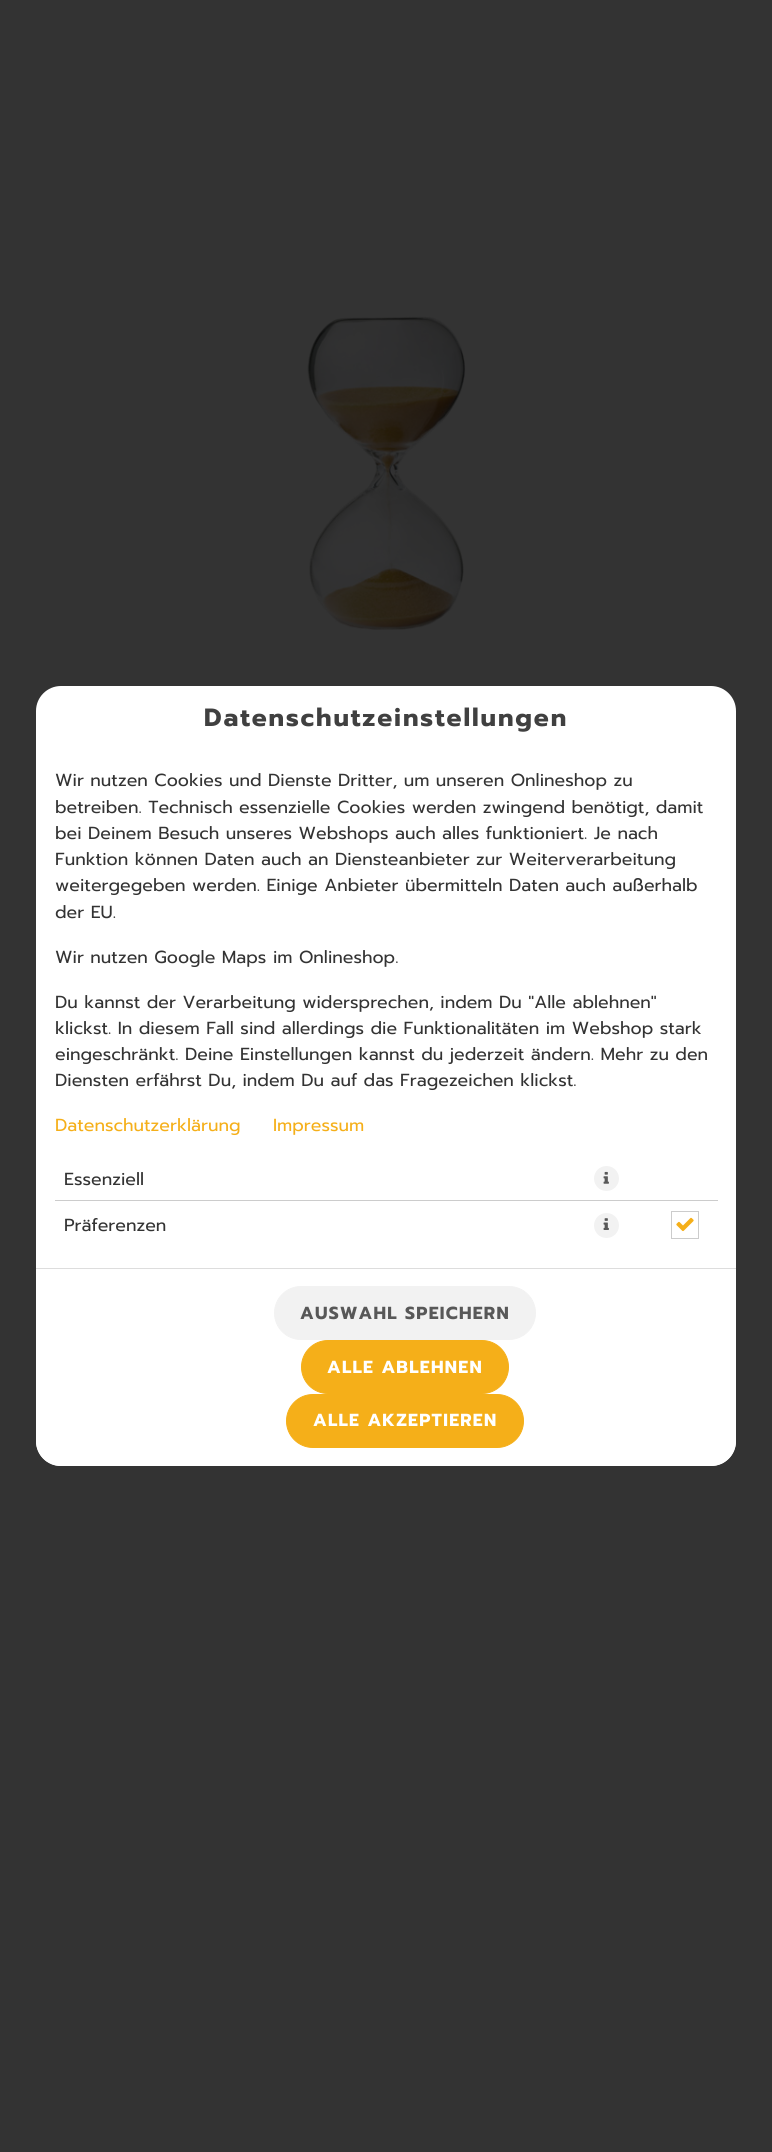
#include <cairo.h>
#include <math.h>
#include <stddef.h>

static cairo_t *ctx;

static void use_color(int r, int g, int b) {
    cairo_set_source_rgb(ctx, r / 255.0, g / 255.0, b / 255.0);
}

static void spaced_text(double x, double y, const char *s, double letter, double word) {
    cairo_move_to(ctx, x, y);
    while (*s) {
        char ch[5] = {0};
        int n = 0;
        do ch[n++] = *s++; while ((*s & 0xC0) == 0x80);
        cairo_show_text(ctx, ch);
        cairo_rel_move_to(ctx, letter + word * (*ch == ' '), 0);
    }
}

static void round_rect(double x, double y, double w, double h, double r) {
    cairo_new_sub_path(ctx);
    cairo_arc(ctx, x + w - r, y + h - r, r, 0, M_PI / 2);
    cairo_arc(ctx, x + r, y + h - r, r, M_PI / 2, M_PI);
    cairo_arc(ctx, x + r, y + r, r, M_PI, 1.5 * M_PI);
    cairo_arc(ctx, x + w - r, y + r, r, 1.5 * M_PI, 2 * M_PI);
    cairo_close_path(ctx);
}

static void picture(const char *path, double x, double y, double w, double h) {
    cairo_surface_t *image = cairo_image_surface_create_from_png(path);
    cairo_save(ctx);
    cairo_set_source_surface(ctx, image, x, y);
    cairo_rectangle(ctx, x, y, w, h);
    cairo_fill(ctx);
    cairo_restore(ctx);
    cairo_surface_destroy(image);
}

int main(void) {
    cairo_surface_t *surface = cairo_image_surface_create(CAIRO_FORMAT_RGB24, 772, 2152);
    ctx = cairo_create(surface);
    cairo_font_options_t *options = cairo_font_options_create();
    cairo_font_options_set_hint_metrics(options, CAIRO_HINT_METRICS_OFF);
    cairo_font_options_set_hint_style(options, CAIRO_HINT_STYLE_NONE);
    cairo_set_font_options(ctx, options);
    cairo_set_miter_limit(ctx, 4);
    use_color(51, 51, 51);
    cairo_paint(ctx);
    picture("img1.png", 307, 316, 159, 314);
    use_color(255, 255, 255);
    round_rect(36, 686, 700, 780, 25);
    cairo_fill(ctx);
    cairo_select_font_face(ctx, "Prompt", CAIRO_FONT_SLANT_NORMAL, CAIRO_FONT_WEIGHT_BOLD);
    cairo_set_font_size(ctx, 25);
    use_color(64, 64, 64);
    spaced_text(204, 726, "Datenschutzeinstellungen", 1.9, 0);
    cairo_select_font_face(ctx, "Prompt", CAIRO_FONT_SLANT_NORMAL, CAIRO_FONT_WEIGHT_NORMAL);
    cairo_set_font_size(ctx, 17.5);
    use_color(51, 51, 51);
    cairo_move_to(ctx, 55, 786);
    cairo_show_text(ctx, "Wir nutzen Cookies und Dienste Dritter, um unseren Onlineshop zu");
    cairo_move_to(ctx, 55, 813);
    cairo_show_text(ctx, "betreiben. Technisch essenzielle Cookies werden zwingend benötigt, damit");
    cairo_move_to(ctx, 55, 839);
    cairo_show_text(ctx, "bei Deinem Besuch unseres Webshops auch alles funktioniert. Je nach");
    cairo_move_to(ctx, 55, 865);
    cairo_show_text(ctx, "Funktion können Daten auch an Diensteanbieter zur Weiterverarbeitung");
    cairo_move_to(ctx, 55, 891);
    cairo_show_text(ctx, "weitergegeben werden. Einige Anbieter übermitteln Daten auch außerhalb");
    cairo_move_to(ctx, 55, 918);
    cairo_show_text(ctx, "der EU.");
    cairo_move_to(ctx, 55, 963);
    cairo_show_text(ctx, "Wir nutzen Google Maps im Onlineshop.");
    cairo_move_to(ctx, 55, 1008);
    cairo_show_text(ctx, "Du kannst der Verarbeitung widersprechen, indem Du \"Alle ablehnen\"");
    cairo_move_to(ctx, 55, 1034);
    cairo_show_text(ctx, "klickst. In diesem Fall sind allerdings die Funktionalitäten im Webshop stark");
    cairo_move_to(ctx, 55, 1060);
    cairo_show_text(ctx, "eingeschränkt. Deine Einstellungen kannst du jederzeit ändern. Mehr zu den");
    cairo_move_to(ctx, 55, 1086);
    cairo_show_text(ctx, "Diensten erfährst Du, indem Du auf das Fragezeichen klickst.");
    use_color(245, 175, 25);
    cairo_move_to(ctx, 55, 1131);
    cairo_show_text(ctx, "Datenschutzerklärung");
    cairo_move_to(ctx, 273, 1131);
    cairo_show_text(ctx, "Impressum");
    use_color(204, 204, 204);
    cairo_rectangle(ctx, 55, 1200, 663, 1);
    cairo_fill(ctx);
    use_color(51, 51, 51);
    cairo_move_to(ctx, 64, 1185);
    cairo_show_text(ctx, "Essenziell");
    use_color(242, 242, 242);
    cairo_new_path(ctx);
    cairo_arc(ctx, 606.5, 1178.5, 12.5, 0, 2 * M_PI);
    cairo_fill(ctx);
    picture("img2.png", 603, 1171, 6, 13);
    use_color(51, 51, 51);
    cairo_move_to(ctx, 64, 1231);
    cairo_show_text(ctx, "Präferenzen");
    use_color(242, 242, 242);
    cairo_new_path(ctx);
    cairo_arc(ctx, 606.5, 1225.5, 12.5, 0, 2 * M_PI);
    cairo_fill(ctx);
    picture("img3.png", 603, 1218, 6, 12);
    cairo_rectangle(ctx, 671.5, 1211.5, 27, 27);
    use_color(204, 204, 204);
    cairo_set_line_width(ctx, 1);
    cairo_stroke(ctx);
    picture("img4.png", 676, 1217, 18, 15);
    use_color(255, 255, 255);
    cairo_new_path(ctx);
    cairo_move_to(ctx, 36, 1268);
    cairo_line_to(ctx, 736, 1268);
    cairo_line_to(ctx, 736, 1441);
    cairo_curve_to(ctx, 736, 1455, 725, 1466, 711, 1466);
    cairo_line_to(ctx, 61, 1466);
    cairo_curve_to(ctx, 47, 1466, 36, 1455, 36, 1441);
    cairo_close_path(ctx);
    cairo_fill(ctx);
    use_color(221, 221, 221);
    cairo_rectangle(ctx, 36, 1268, 700, 1);
    cairo_fill(ctx);
    use_color(242, 242, 242);
    round_rect(274.5, 1286.5, 261, 53, 26.5);
    cairo_fill_preserve(ctx);
    cairo_stroke(ctx);
    cairo_select_font_face(ctx, "Prompt", CAIRO_FONT_SLANT_NORMAL, CAIRO_FONT_WEIGHT_BOLD);
    use_color(88, 88, 88);
    spaced_text(300, 1319, "AUSWAHL SPEICHERN", 1.25, 0);
    use_color(245, 175, 25);
    round_rect(301.5, 1340.5, 207, 53, 26.5);
    cairo_fill_preserve(ctx);
    cairo_stroke(ctx);
    use_color(255, 255, 255);
    spaced_text(327, 1373, "ALLE ABLEHNEN", 1.25, 0);
    use_color(245, 175, 25);
    round_rect(286.5, 1394.5, 237, 53, 26.5);
    cairo_fill_preserve(ctx);
    cairo_stroke(ctx);
    use_color(255, 255, 255);
    spaced_text(313, 1426, "ALLE AKZEPTIEREN", 1.25, 0);
    cairo_surface_write_to_png(surface, "result.png");
    cairo_font_options_destroy(options);
    cairo_destroy(ctx);
    cairo_surface_destroy(surface);
    return 0;
}
